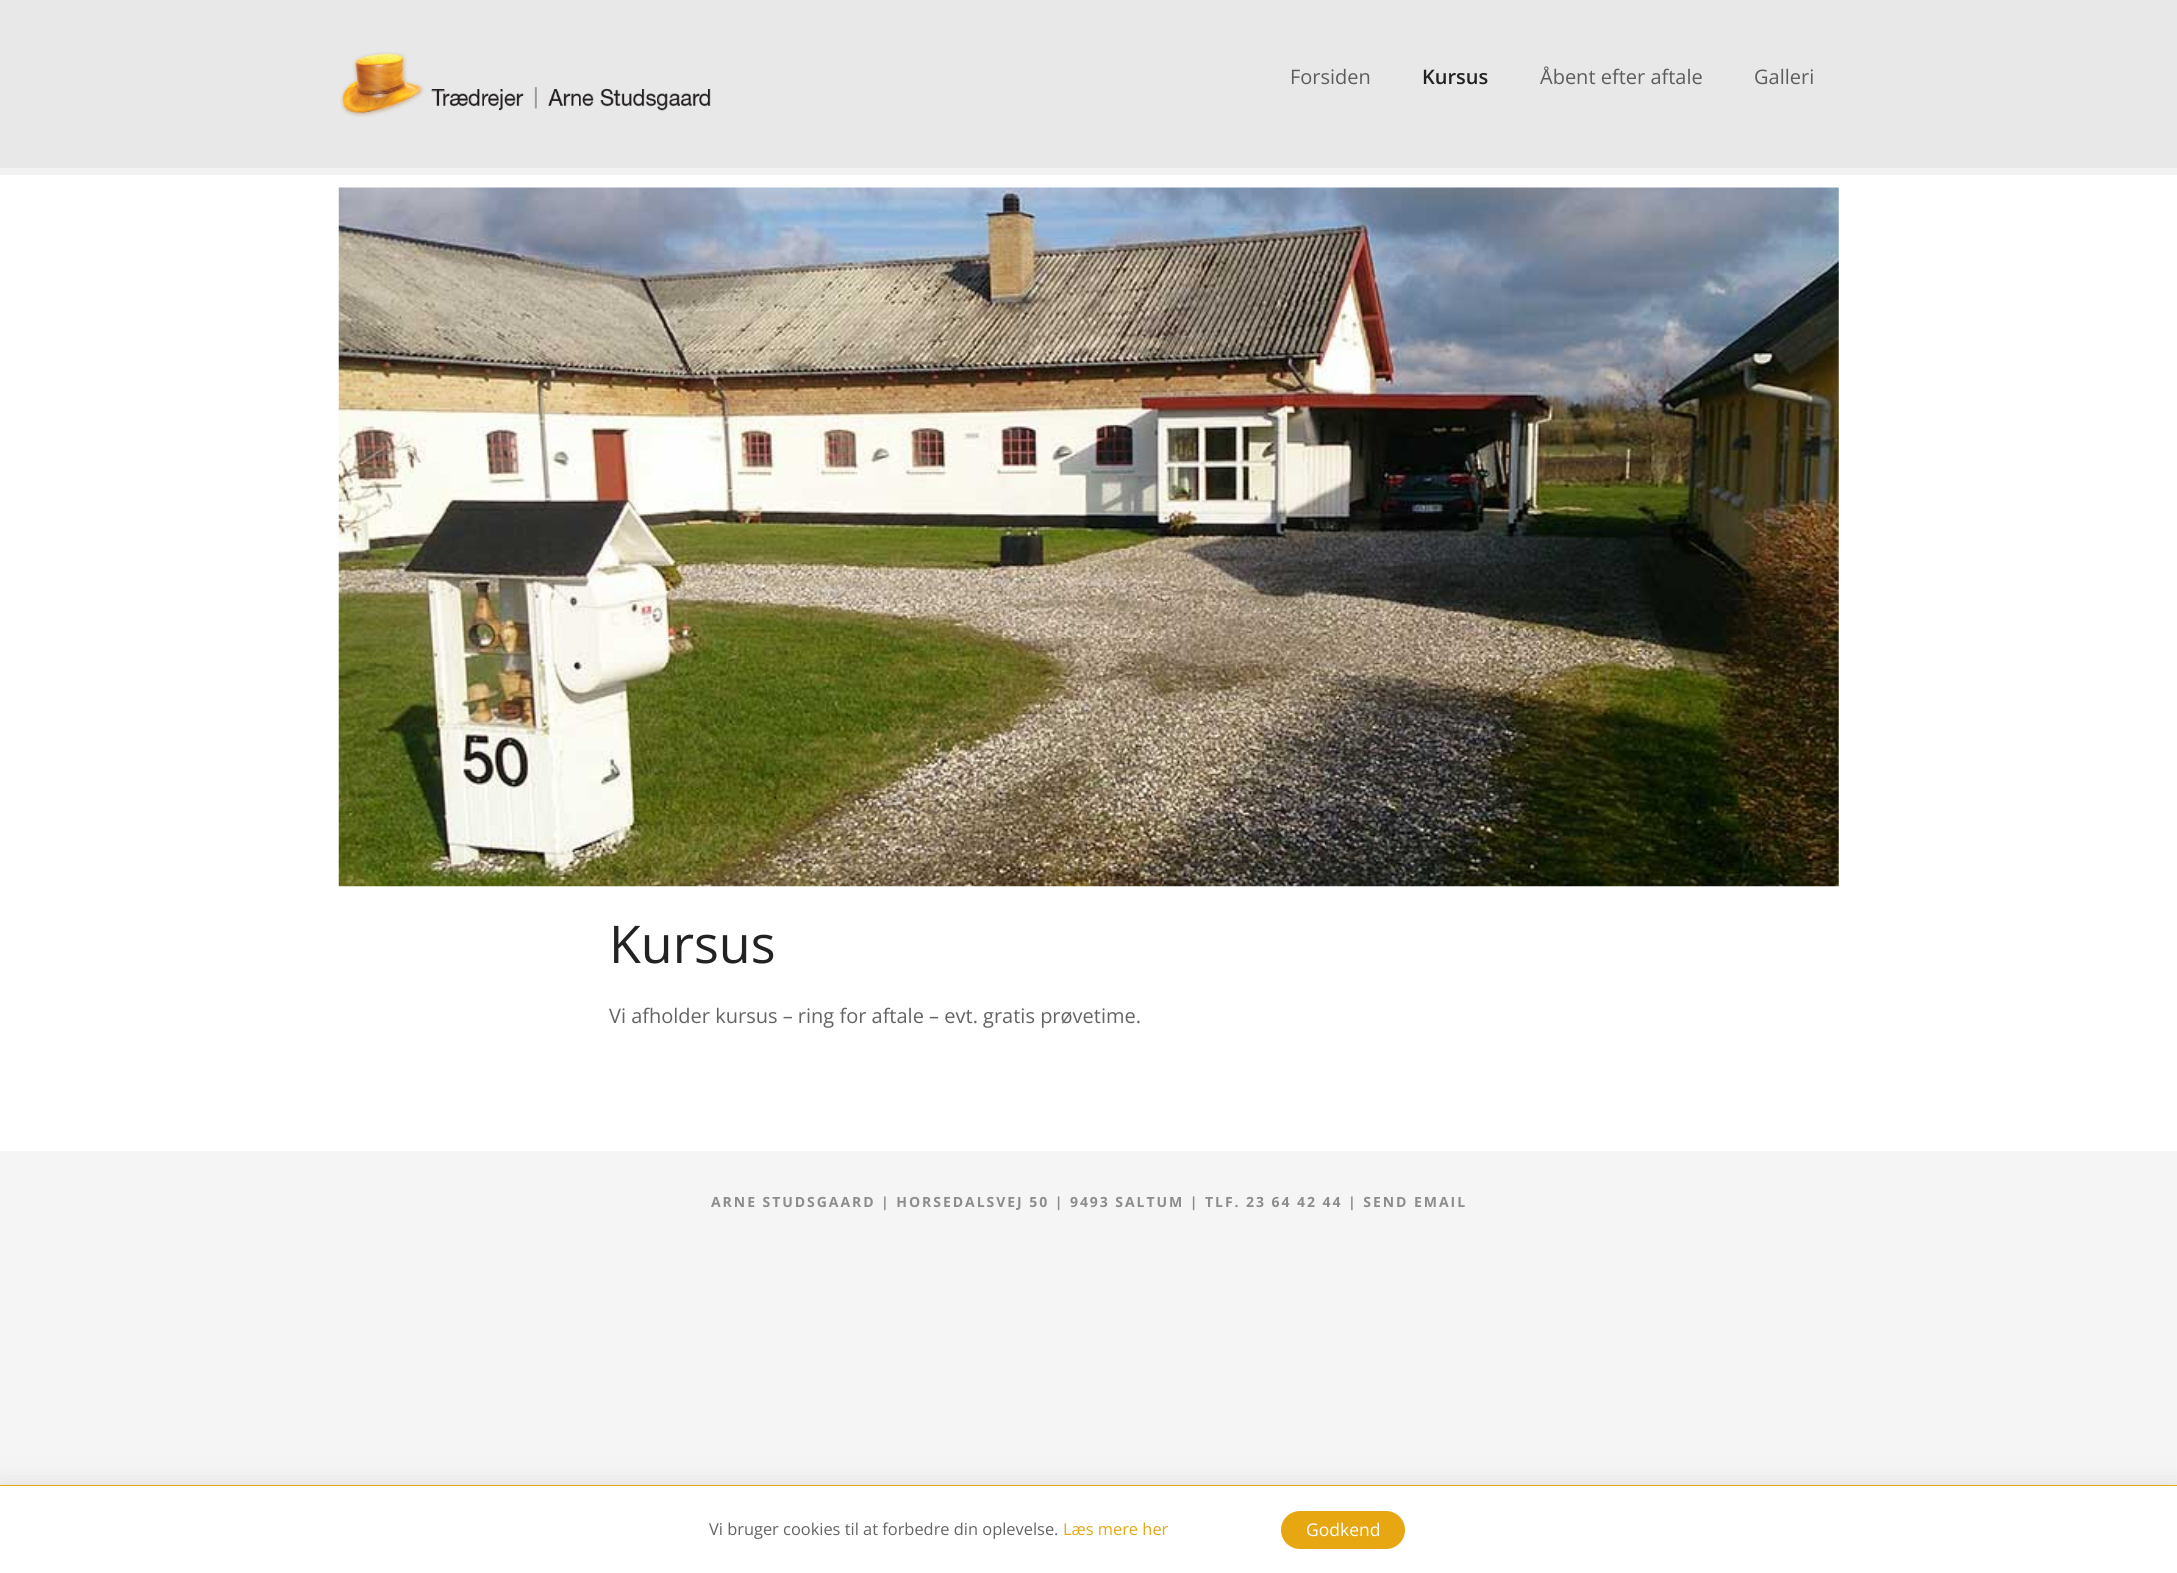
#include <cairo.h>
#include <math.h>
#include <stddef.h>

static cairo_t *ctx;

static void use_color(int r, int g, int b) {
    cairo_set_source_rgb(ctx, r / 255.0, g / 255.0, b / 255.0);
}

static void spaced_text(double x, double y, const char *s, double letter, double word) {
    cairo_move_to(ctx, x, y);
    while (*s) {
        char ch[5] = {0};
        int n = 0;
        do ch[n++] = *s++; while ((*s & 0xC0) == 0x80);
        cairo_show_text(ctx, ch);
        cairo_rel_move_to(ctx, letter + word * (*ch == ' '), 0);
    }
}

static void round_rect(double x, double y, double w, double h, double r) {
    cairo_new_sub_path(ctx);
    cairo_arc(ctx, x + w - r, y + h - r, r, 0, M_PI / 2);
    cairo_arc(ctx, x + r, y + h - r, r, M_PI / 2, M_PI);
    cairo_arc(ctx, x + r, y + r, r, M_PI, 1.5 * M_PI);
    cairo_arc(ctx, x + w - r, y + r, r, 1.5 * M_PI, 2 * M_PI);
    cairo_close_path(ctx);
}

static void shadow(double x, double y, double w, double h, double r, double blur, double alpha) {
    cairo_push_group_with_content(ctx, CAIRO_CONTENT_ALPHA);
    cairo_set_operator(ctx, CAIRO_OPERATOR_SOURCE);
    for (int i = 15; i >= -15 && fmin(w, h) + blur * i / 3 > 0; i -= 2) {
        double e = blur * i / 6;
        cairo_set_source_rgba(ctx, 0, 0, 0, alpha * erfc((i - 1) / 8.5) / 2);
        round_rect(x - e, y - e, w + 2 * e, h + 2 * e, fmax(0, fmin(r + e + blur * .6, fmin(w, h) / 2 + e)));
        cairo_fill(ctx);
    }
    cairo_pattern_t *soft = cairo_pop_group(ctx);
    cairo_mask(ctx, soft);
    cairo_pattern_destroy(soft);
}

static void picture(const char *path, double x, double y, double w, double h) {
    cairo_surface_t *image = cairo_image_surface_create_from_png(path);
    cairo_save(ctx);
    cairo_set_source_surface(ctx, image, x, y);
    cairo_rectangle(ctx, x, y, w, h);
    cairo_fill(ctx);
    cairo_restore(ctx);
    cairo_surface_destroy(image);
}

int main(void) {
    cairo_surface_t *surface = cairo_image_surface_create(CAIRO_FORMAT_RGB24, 2177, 1573);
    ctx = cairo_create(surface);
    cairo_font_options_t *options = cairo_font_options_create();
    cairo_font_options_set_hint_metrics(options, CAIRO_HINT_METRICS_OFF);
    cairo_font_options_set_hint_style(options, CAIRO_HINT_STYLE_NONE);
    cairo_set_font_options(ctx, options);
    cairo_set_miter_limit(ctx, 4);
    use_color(245, 245, 245);
    cairo_paint(ctx);
    use_color(255, 255, 255);
    cairo_rectangle(ctx, 0, 175, 2177, 976);
    cairo_fill(ctx);
    use_color(242, 242, 242);
    cairo_new_path(ctx);
    cairo_move_to(ctx, 0, 168);
    cairo_line_to(ctx, 0, 175);
    cairo_line_to(ctx, 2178, 175);
    cairo_line_to(ctx, 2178, 8);
    cairo_line_to(ctx, 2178, 168);
    cairo_close_path(ctx);
    cairo_fill(ctx);
    use_color(232, 232, 232);
    cairo_rectangle(ctx, 0, 0, 2177, 168);
    cairo_fill(ctx);
    picture("img1.png", 340, 52, 371, 65);
    cairo_select_font_face(ctx, "Open Sans", CAIRO_FONT_SLANT_NORMAL, CAIRO_FONT_WEIGHT_NORMAL);
    cairo_set_font_size(ctx, 20);
    use_color(93, 93, 93);
    cairo_move_to(ctx, 1290, 84);
    cairo_show_text(ctx, "Forsiden");
    cairo_select_font_face(ctx, "Open Sans SemiBold", CAIRO_FONT_SLANT_NORMAL, CAIRO_FONT_WEIGHT_NORMAL);
    use_color(34, 34, 34);
    cairo_move_to(ctx, 1422, 84);
    cairo_show_text(ctx, "Kursus");
    cairo_select_font_face(ctx, "Open Sans", CAIRO_FONT_SLANT_NORMAL, CAIRO_FONT_WEIGHT_NORMAL);
    use_color(93, 93, 93);
    cairo_move_to(ctx, 1540, 84);
    cairo_show_text(ctx, "Åbent efter aftale");
    cairo_move_to(ctx, 1754, 84);
    cairo_show_text(ctx, "Galleri");
    picture("img2.png", 338, 187, 1501, 700);
    cairo_set_font_size(ctx, 52);
    use_color(34, 34, 34);
    cairo_move_to(ctx, 609, 963);
    cairo_show_text(ctx, "Kursus");
    cairo_set_font_size(ctx, 20);
    use_color(100, 100, 100);
    cairo_move_to(ctx, 609, 1023);
    cairo_show_text(ctx, "Vi afholder kursus – ring for aftale – evt. gratis prøvetime.");
    cairo_select_font_face(ctx, "Open Sans", CAIRO_FONT_SLANT_NORMAL, CAIRO_FONT_WEIGHT_BOLD);
    cairo_set_font_size(ctx, 14);
    use_color(140, 140, 140);
    spaced_text(711, 1207, "ARNE STUDSGAARD | HORSEDALSVEJ 50 | 9493 SALTUM | TLF. 23 64 42 44 | SEND EMAIL", 1.95, 0);
    use_color(0, 0, 0);
    shadow(0, 1485, 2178, 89, 0, 12.5, 0.1);
    use_color(255, 255, 255);
    cairo_rectangle(ctx, 0, 1486, 2177, 87);
    cairo_fill(ctx);
    use_color(230, 167, 19);
    cairo_rectangle(ctx, 0, 1485, 2177, 1);
    cairo_fill(ctx);
    cairo_select_font_face(ctx, "Open Sans", CAIRO_FONT_SLANT_NORMAL, CAIRO_FONT_WEIGHT_NORMAL);
    cairo_set_font_size(ctx, 16.4);
    use_color(100, 100, 100);
    cairo_move_to(ctx, 709, 1535);
    cairo_show_text(ctx, "Vi bruger cookies til at forbedre din oplevelse.");
    use_color(230, 167, 19);
    cairo_move_to(ctx, 1063, 1535);
    cairo_show_text(ctx, "Læs mere her");
    round_rect(1281, 1511, 124, 38, 19);
    cairo_fill(ctx);
    cairo_set_font_size(ctx, 17.5);
    use_color(255, 255, 255);
    cairo_move_to(ctx, 1306, 1536);
    cairo_show_text(ctx, "Godkend");
    cairo_surface_write_to_png(surface, "result.png");
    cairo_font_options_destroy(options);
    cairo_destroy(ctx);
    cairo_surface_destroy(surface);
    return 0;
}
